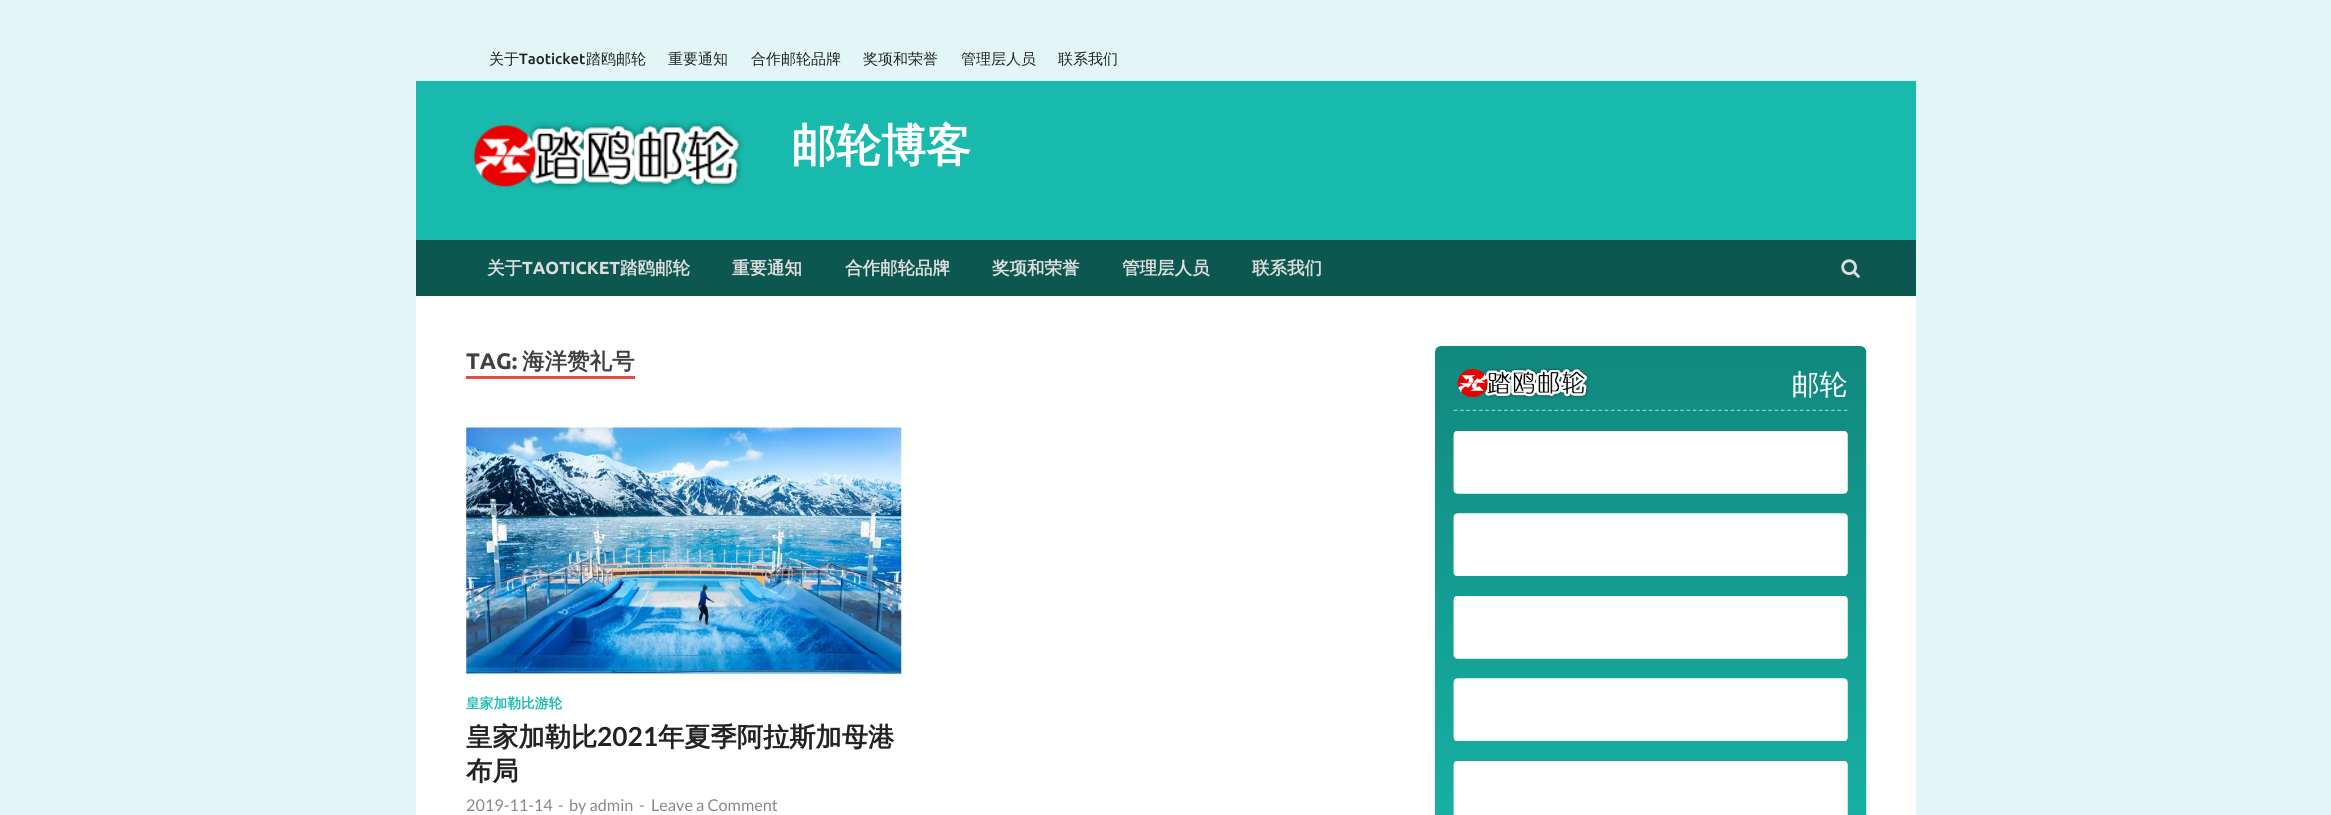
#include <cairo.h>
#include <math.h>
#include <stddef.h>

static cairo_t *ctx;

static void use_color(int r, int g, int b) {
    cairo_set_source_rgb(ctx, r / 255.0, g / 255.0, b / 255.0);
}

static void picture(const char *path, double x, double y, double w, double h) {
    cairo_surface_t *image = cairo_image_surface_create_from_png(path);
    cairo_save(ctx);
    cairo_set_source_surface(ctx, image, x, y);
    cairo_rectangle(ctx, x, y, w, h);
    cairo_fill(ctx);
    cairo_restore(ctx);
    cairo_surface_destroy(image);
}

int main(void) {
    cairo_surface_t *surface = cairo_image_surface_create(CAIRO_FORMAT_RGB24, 2331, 815);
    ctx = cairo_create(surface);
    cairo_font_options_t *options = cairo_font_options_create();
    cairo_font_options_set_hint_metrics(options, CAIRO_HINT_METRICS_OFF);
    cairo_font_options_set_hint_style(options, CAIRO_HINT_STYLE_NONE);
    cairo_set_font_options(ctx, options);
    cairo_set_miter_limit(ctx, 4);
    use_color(226, 247, 245);
    cairo_paint(ctx);
    use_color(255, 255, 255);
    cairo_rectangle(ctx, 416, 296, 1500, 519);
    cairo_fill(ctx);
    cairo_select_font_face(ctx, "WenQuanYi Zen Hei Medium", CAIRO_FONT_SLANT_NORMAL, CAIRO_FONT_WEIGHT_NORMAL);
    cairo_set_font_size(ctx, 15);
    use_color(34, 34, 34);
    cairo_move_to(ctx, 489, 64);
    cairo_show_text(ctx, "关于");
    cairo_select_font_face(ctx, "Ubuntu Medium", CAIRO_FONT_SLANT_NORMAL, CAIRO_FONT_WEIGHT_NORMAL);
    cairo_move_to(ctx, 519, 64);
    cairo_show_text(ctx, "Taoticket");
    cairo_select_font_face(ctx, "WenQuanYi Zen Hei Medium", CAIRO_FONT_SLANT_NORMAL, CAIRO_FONT_WEIGHT_NORMAL);
    cairo_move_to(ctx, 586, 64);
    cairo_show_text(ctx, "踏鸥邮轮");
    cairo_move_to(ctx, 668, 64);
    cairo_show_text(ctx, "重要通知");
    cairo_move_to(ctx, 751, 64);
    cairo_show_text(ctx, "合作邮轮品牌");
    cairo_move_to(ctx, 863, 64);
    cairo_show_text(ctx, "奖项和荣誉");
    cairo_move_to(ctx, 961, 64);
    cairo_show_text(ctx, "管理层人员");
    cairo_move_to(ctx, 1058, 64);
    cairo_show_text(ctx, "联系我们");
    use_color(24, 186, 173);
    cairo_rectangle(ctx, 416, 81, 1500, 159);
    cairo_fill(ctx);
    picture("img1.png", 473, 121, 271, 69);
    cairo_select_font_face(ctx, "WenQuanYi Zen Hei", CAIRO_FONT_SLANT_NORMAL, CAIRO_FONT_WEIGHT_BOLD);
    cairo_set_font_size(ctx, 45);
    use_color(255, 255, 255);
    cairo_move_to(ctx, 791, 161);
    cairo_show_text(ctx, "邮轮博客");
    use_color(13, 87, 81);
    cairo_rectangle(ctx, 416, 240, 1500, 56);
    cairo_fill(ctx);
    cairo_set_font_size(ctx, 17.5);
    use_color(221, 221, 221);
    cairo_move_to(ctx, 487, 274);
    cairo_show_text(ctx, "关于");
    cairo_select_font_face(ctx, "Ubuntu", CAIRO_FONT_SLANT_NORMAL, CAIRO_FONT_WEIGHT_BOLD);
    cairo_move_to(ctx, 522, 274);
    cairo_show_text(ctx, "TAOTICKET");
    cairo_select_font_face(ctx, "WenQuanYi Zen Hei", CAIRO_FONT_SLANT_NORMAL, CAIRO_FONT_WEIGHT_BOLD);
    cairo_move_to(ctx, 620, 274);
    cairo_show_text(ctx, "踏鸥邮轮");
    cairo_move_to(ctx, 732, 274);
    cairo_show_text(ctx, "重要通知");
    cairo_move_to(ctx, 845, 274);
    cairo_show_text(ctx, "合作邮轮品牌");
    cairo_move_to(ctx, 992, 274);
    cairo_show_text(ctx, "奖项和荣誉");
    cairo_move_to(ctx, 1122, 274);
    cairo_show_text(ctx, "管理层人员");
    cairo_move_to(ctx, 1252, 274);
    cairo_show_text(ctx, "联系我们");
    picture("img2.png", 1841, 259, 19, 19);
    cairo_select_font_face(ctx, "Ubuntu", CAIRO_FONT_SLANT_NORMAL, CAIRO_FONT_WEIGHT_BOLD);
    cairo_set_font_size(ctx, 22.5);
    use_color(64, 64, 64);
    cairo_move_to(ctx, 466, 369);
    cairo_show_text(ctx, "TAG:");
    use_color(231, 76, 60);
    cairo_rectangle(ctx, 466, 376, 169, 3);
    cairo_fill(ctx);
    cairo_select_font_face(ctx, "WenQuanYi Zen Hei", CAIRO_FONT_SLANT_NORMAL, CAIRO_FONT_WEIGHT_BOLD);
    use_color(64, 64, 64);
    cairo_move_to(ctx, 522, 369);
    cairo_show_text(ctx, "海洋赞礼号");
    picture("img3.png", 466, 427, 436, 247);
    cairo_set_font_size(ctx, 13.75);
    use_color(24, 186, 173);
    cairo_move_to(ctx, 466, 708);
    cairo_show_text(ctx, "皇家加勒比游轮");
    cairo_set_font_size(ctx, 26.25);
    use_color(34, 34, 34);
    cairo_move_to(ctx, 466, 746);
    cairo_show_text(ctx, "皇家加勒比");
    cairo_select_font_face(ctx, "Lato", CAIRO_FONT_SLANT_NORMAL, CAIRO_FONT_WEIGHT_BOLD);
    cairo_move_to(ctx, 597, 746);
    cairo_show_text(ctx, "2021");
    cairo_select_font_face(ctx, "WenQuanYi Zen Hei", CAIRO_FONT_SLANT_NORMAL, CAIRO_FONT_WEIGHT_BOLD);
    cairo_move_to(ctx, 658, 746);
    cairo_show_text(ctx, "年夏季阿拉斯加母港");
    cairo_move_to(ctx, 466, 780);
    cairo_show_text(ctx, "布局");
    cairo_select_font_face(ctx, "Lato", CAIRO_FONT_SLANT_NORMAL, CAIRO_FONT_WEIGHT_NORMAL);
    cairo_set_font_size(ctx, 16.25);
    use_color(136, 136, 136);
    cairo_move_to(ctx, 466, 811);
    cairo_show_text(ctx, "2019-11-14");
    cairo_move_to(ctx, 558, 811);
    cairo_show_text(ctx, "-");
    cairo_move_to(ctx, 569, 811);
    cairo_show_text(ctx, "by admin");
    cairo_move_to(ctx, 639, 811);
    cairo_show_text(ctx, "-");
    cairo_move_to(ctx, 651, 811);
    cairo_show_text(ctx, "Leave a Comment");
    picture("img4.png", 1435, 346, 432, 469);
    cairo_surface_write_to_png(surface, "result.png");
    cairo_font_options_destroy(options);
    cairo_destroy(ctx);
    cairo_surface_destroy(surface);
    return 0;
}
